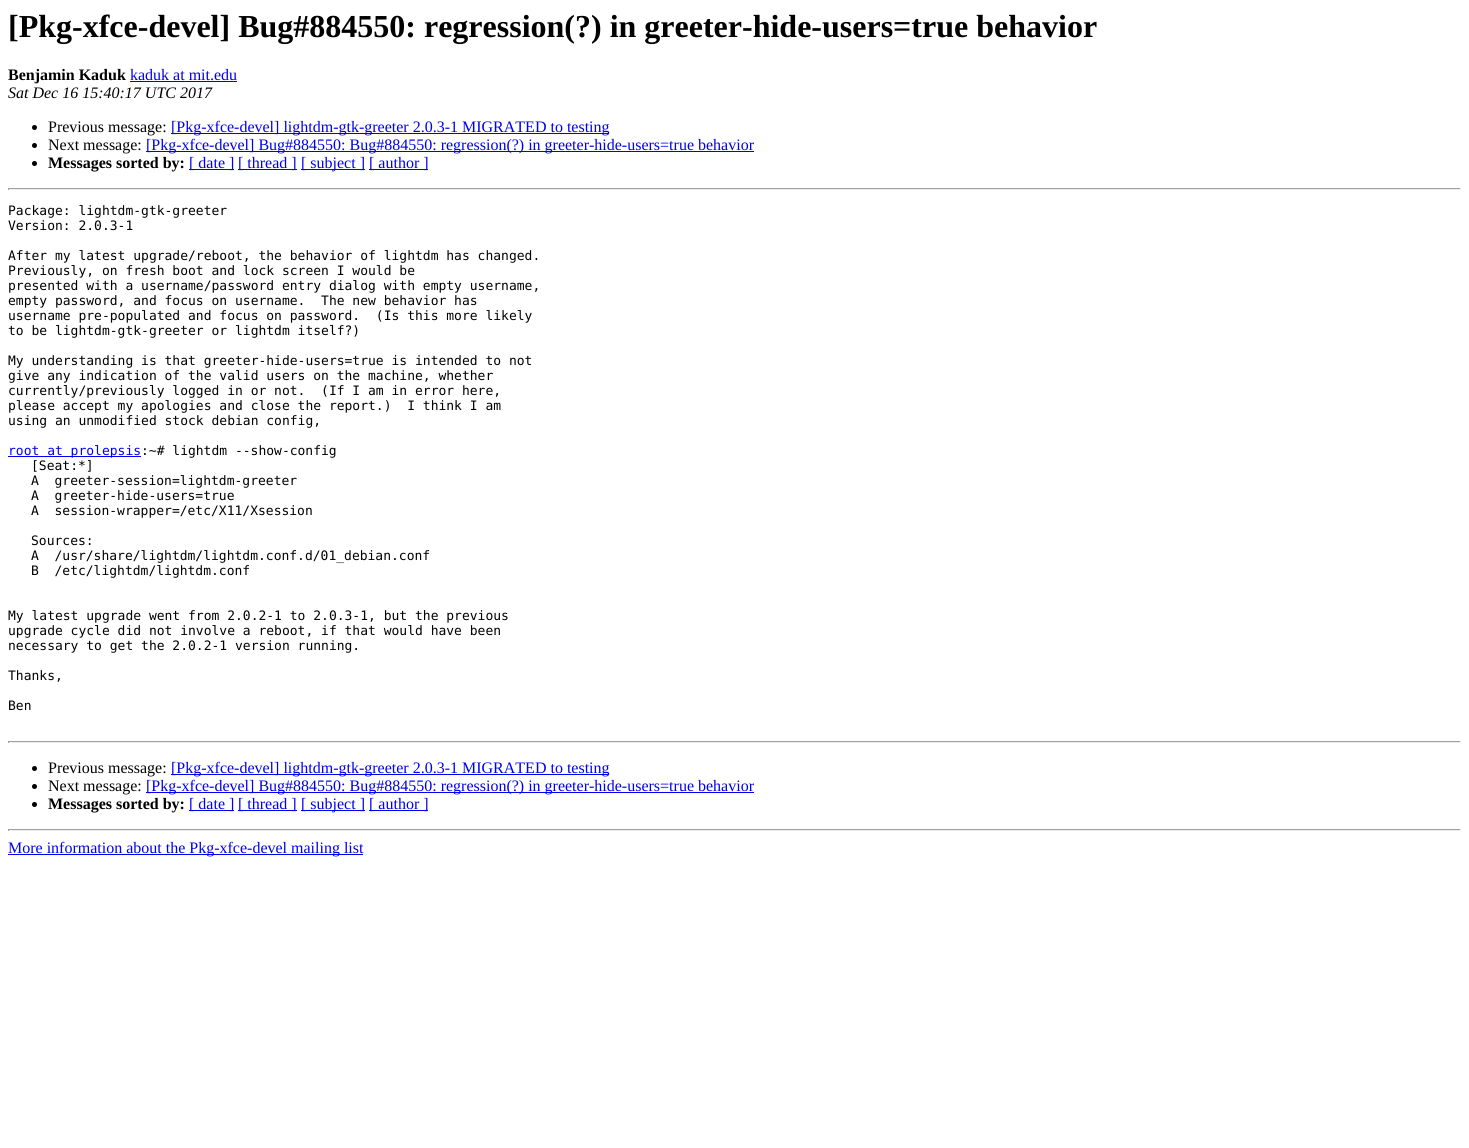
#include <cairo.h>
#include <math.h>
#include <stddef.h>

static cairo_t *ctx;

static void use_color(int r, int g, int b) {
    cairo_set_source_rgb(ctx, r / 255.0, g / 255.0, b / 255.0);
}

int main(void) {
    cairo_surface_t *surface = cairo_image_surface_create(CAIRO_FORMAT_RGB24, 1469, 1148);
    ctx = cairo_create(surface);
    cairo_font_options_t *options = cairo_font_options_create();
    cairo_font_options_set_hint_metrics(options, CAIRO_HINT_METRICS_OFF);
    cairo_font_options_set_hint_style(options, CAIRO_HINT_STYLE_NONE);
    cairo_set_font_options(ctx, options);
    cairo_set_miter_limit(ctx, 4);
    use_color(255, 255, 255);
    cairo_paint(ctx);
    cairo_select_font_face(ctx, "Liberation Serif", CAIRO_FONT_SLANT_NORMAL, CAIRO_FONT_WEIGHT_BOLD);
    cairo_set_font_size(ctx, 32);
    use_color(0, 0, 0);
    cairo_move_to(ctx, 8, 37);
    cairo_show_text(ctx, "[Pkg-xfce-devel] Bug#884550: regression(?) in greeter-hide-users=true behavior");
    cairo_set_font_size(ctx, 16);
    cairo_move_to(ctx, 8, 80);
    cairo_show_text(ctx, "Benjamin Kaduk");
    cairo_select_font_face(ctx, "Liberation Serif", CAIRO_FONT_SLANT_NORMAL, CAIRO_FONT_WEIGHT_NORMAL);
    use_color(0, 0, 238);
    cairo_move_to(ctx, 130, 80);
    cairo_show_text(ctx, "kaduk at mit.edu");
    cairo_rectangle(ctx, 130, 81, 107, 1);
    cairo_fill(ctx);
    cairo_select_font_face(ctx, "Liberation Serif", CAIRO_FONT_SLANT_ITALIC, CAIRO_FONT_WEIGHT_NORMAL);
    use_color(0, 0, 0);
    cairo_move_to(ctx, 8, 98);
    cairo_show_text(ctx, "Sat Dec 16 15:40:17 UTC 2017");
    cairo_new_path(ctx);
    cairo_arc(ctx, 34.5, 127.5, 2.5, 0, 2 * M_PI);
    cairo_fill(ctx);
    cairo_select_font_face(ctx, "Liberation Serif", CAIRO_FONT_SLANT_NORMAL, CAIRO_FONT_WEIGHT_NORMAL);
    cairo_move_to(ctx, 48, 132);
    cairo_show_text(ctx, "Previous message:");
    use_color(0, 0, 238);
    cairo_rectangle(ctx, 171, 133, 438, 1);
    cairo_fill(ctx);
    cairo_move_to(ctx, 171, 132);
    cairo_show_text(ctx, "[Pkg-xfce-devel] lightdm-gtk-greeter 2.0.3-1 MIGRATED to testing");
    use_color(0, 0, 0);
    cairo_new_path(ctx);
    cairo_arc(ctx, 34.5, 145.5, 2.5, 0, 2 * M_PI);
    cairo_fill(ctx);
    cairo_move_to(ctx, 48, 150);
    cairo_show_text(ctx, "Next message:");
    use_color(0, 0, 238);
    cairo_rectangle(ctx, 146, 151, 608, 1);
    cairo_fill(ctx);
    cairo_move_to(ctx, 146, 150);
    cairo_show_text(ctx, "[Pkg-xfce-devel] Bug#884550: Bug#884550: regression(?) in greeter-hide-users=true behavior");
    use_color(0, 0, 0);
    cairo_new_path(ctx);
    cairo_arc(ctx, 34.5, 163.5, 2.5, 0, 2 * M_PI);
    cairo_fill(ctx);
    cairo_select_font_face(ctx, "Liberation Serif", CAIRO_FONT_SLANT_NORMAL, CAIRO_FONT_WEIGHT_BOLD);
    cairo_move_to(ctx, 48, 168);
    cairo_show_text(ctx, "Messages sorted by:");
    use_color(0, 0, 238);
    cairo_rectangle(ctx, 189, 169, 45, 1);
    cairo_fill(ctx);
    cairo_select_font_face(ctx, "Liberation Serif", CAIRO_FONT_SLANT_NORMAL, CAIRO_FONT_WEIGHT_NORMAL);
    cairo_move_to(ctx, 189, 168);
    cairo_show_text(ctx, "[ date ]");
    cairo_rectangle(ctx, 238, 169, 59, 1);
    cairo_fill(ctx);
    cairo_move_to(ctx, 238, 168);
    cairo_show_text(ctx, "[ thread ]");
    cairo_rectangle(ctx, 301, 169, 64, 1);
    cairo_fill(ctx);
    cairo_move_to(ctx, 301, 168);
    cairo_show_text(ctx, "[ subject ]");
    cairo_rectangle(ctx, 369, 169, 59, 1);
    cairo_fill(ctx);
    cairo_move_to(ctx, 369, 168);
    cairo_show_text(ctx, "[ author ]");
    use_color(159, 159, 159);
    cairo_rectangle(ctx, 8, 188, 1453, 1);
    cairo_fill(ctx);
    use_color(238, 238, 238);
    cairo_rectangle(ctx, 1460, 188, 1, 2);
    cairo_fill(ctx);
    cairo_rectangle(ctx, 8, 189, 1453, 1);
    cairo_fill(ctx);
    use_color(159, 159, 159);
    cairo_rectangle(ctx, 8, 188, 1, 2);
    cairo_fill(ctx);
    cairo_select_font_face(ctx, "DejaVu Sans Mono", CAIRO_FONT_SLANT_NORMAL, CAIRO_FONT_WEIGHT_NORMAL);
    cairo_set_font_size(ctx, 13);
    use_color(0, 0, 0);
    cairo_move_to(ctx, 8, 215);
    cairo_show_text(ctx, "Package: lightdm-gtk-greeter");
    cairo_move_to(ctx, 8, 230);
    cairo_show_text(ctx, "Version: 2.0.3-1");
    cairo_move_to(ctx, 8, 260);
    cairo_show_text(ctx, "After my latest upgrade/reboot, the behavior of lightdm has changed.");
    cairo_move_to(ctx, 8, 275);
    cairo_show_text(ctx, "Previously, on fresh boot and lock screen I would be");
    cairo_move_to(ctx, 8, 290);
    cairo_show_text(ctx, "presented with a username/password entry dialog with empty username,");
    cairo_move_to(ctx, 8, 305);
    cairo_show_text(ctx, "empty password, and focus on username.  The new behavior has");
    cairo_move_to(ctx, 8, 320);
    cairo_show_text(ctx, "username pre-populated and focus on password.  (Is this more likely");
    cairo_move_to(ctx, 8, 335);
    cairo_show_text(ctx, "to be lightdm-gtk-greeter or lightdm itself?)");
    cairo_move_to(ctx, 8, 365);
    cairo_show_text(ctx, "My understanding is that greeter-hide-users=true is intended to not");
    cairo_move_to(ctx, 8, 380);
    cairo_show_text(ctx, "give any indication of the valid users on the machine, whether");
    cairo_move_to(ctx, 8, 395);
    cairo_show_text(ctx, "currently/previously logged in or not.  (If I am in error here,");
    cairo_move_to(ctx, 8, 410);
    cairo_show_text(ctx, "please accept my apologies and close the report.)  I think I am");
    cairo_move_to(ctx, 8, 425);
    cairo_show_text(ctx, "using an unmodified stock debian config,");
    use_color(0, 0, 238);
    cairo_rectangle(ctx, 8, 456, 133, 1);
    cairo_fill(ctx);
    cairo_move_to(ctx, 8, 455);
    cairo_show_text(ctx, "root at prolepsis");
    use_color(0, 0, 0);
    cairo_move_to(ctx, 141, 455);
    cairo_show_text(ctx, ":~# lightdm --show-config");
    cairo_move_to(ctx, 31, 470);
    cairo_show_text(ctx, "[Seat:*]");
    cairo_move_to(ctx, 31, 485);
    cairo_show_text(ctx, "A  greeter-session=lightdm-greeter");
    cairo_move_to(ctx, 31, 500);
    cairo_show_text(ctx, "A  greeter-hide-users=true");
    cairo_move_to(ctx, 31, 515);
    cairo_show_text(ctx, "A  session-wrapper=/etc/X11/Xsession");
    cairo_move_to(ctx, 31, 545);
    cairo_show_text(ctx, "Sources:");
    cairo_move_to(ctx, 31, 560);
    cairo_show_text(ctx, "A  /usr/share/lightdm/lightdm.conf.d/01_debian.conf");
    cairo_move_to(ctx, 31, 575);
    cairo_show_text(ctx, "B  /etc/lightdm/lightdm.conf");
    cairo_move_to(ctx, 8, 620);
    cairo_show_text(ctx, "My latest upgrade went from 2.0.2-1 to 2.0.3-1, but the previous");
    cairo_move_to(ctx, 8, 635);
    cairo_show_text(ctx, "upgrade cycle did not involve a reboot, if that would have been");
    cairo_move_to(ctx, 8, 650);
    cairo_show_text(ctx, "necessary to get the 2.0.2-1 version running.");
    cairo_move_to(ctx, 8, 680);
    cairo_show_text(ctx, "Thanks,");
    cairo_move_to(ctx, 8, 710);
    cairo_show_text(ctx, "Ben");
    use_color(159, 159, 159);
    cairo_rectangle(ctx, 8, 741, 1453, 1);
    cairo_fill(ctx);
    use_color(238, 238, 238);
    cairo_rectangle(ctx, 1460, 741, 1, 2);
    cairo_fill(ctx);
    cairo_rectangle(ctx, 8, 742, 1453, 1);
    cairo_fill(ctx);
    use_color(159, 159, 159);
    cairo_rectangle(ctx, 8, 741, 1, 2);
    cairo_fill(ctx);
    use_color(0, 0, 0);
    cairo_arc(ctx, 34.5, 768.5, 2.5, 0, 2 * M_PI);
    cairo_fill(ctx);
    cairo_select_font_face(ctx, "Liberation Serif", CAIRO_FONT_SLANT_NORMAL, CAIRO_FONT_WEIGHT_NORMAL);
    cairo_set_font_size(ctx, 16);
    cairo_move_to(ctx, 48, 773);
    cairo_show_text(ctx, "Previous message:");
    use_color(0, 0, 238);
    cairo_rectangle(ctx, 171, 774, 438, 1);
    cairo_fill(ctx);
    cairo_move_to(ctx, 171, 773);
    cairo_show_text(ctx, "[Pkg-xfce-devel] lightdm-gtk-greeter 2.0.3-1 MIGRATED to testing");
    use_color(0, 0, 0);
    cairo_new_path(ctx);
    cairo_arc(ctx, 34.5, 786.5, 2.5, 0, 2 * M_PI);
    cairo_fill(ctx);
    cairo_move_to(ctx, 48, 791);
    cairo_show_text(ctx, "Next message:");
    use_color(0, 0, 238);
    cairo_rectangle(ctx, 146, 792, 608, 1);
    cairo_fill(ctx);
    cairo_move_to(ctx, 146, 791);
    cairo_show_text(ctx, "[Pkg-xfce-devel] Bug#884550: Bug#884550: regression(?) in greeter-hide-users=true behavior");
    use_color(0, 0, 0);
    cairo_new_path(ctx);
    cairo_arc(ctx, 34.5, 804.5, 2.5, 0, 2 * M_PI);
    cairo_fill(ctx);
    cairo_select_font_face(ctx, "Liberation Serif", CAIRO_FONT_SLANT_NORMAL, CAIRO_FONT_WEIGHT_BOLD);
    cairo_move_to(ctx, 48, 809);
    cairo_show_text(ctx, "Messages sorted by:");
    use_color(0, 0, 238);
    cairo_rectangle(ctx, 189, 810, 45, 1);
    cairo_fill(ctx);
    cairo_select_font_face(ctx, "Liberation Serif", CAIRO_FONT_SLANT_NORMAL, CAIRO_FONT_WEIGHT_NORMAL);
    cairo_move_to(ctx, 189, 809);
    cairo_show_text(ctx, "[ date ]");
    cairo_rectangle(ctx, 238, 810, 59, 1);
    cairo_fill(ctx);
    cairo_move_to(ctx, 238, 809);
    cairo_show_text(ctx, "[ thread ]");
    cairo_rectangle(ctx, 301, 810, 64, 1);
    cairo_fill(ctx);
    cairo_move_to(ctx, 301, 809);
    cairo_show_text(ctx, "[ subject ]");
    cairo_rectangle(ctx, 369, 810, 59, 1);
    cairo_fill(ctx);
    cairo_move_to(ctx, 369, 809);
    cairo_show_text(ctx, "[ author ]");
    use_color(159, 159, 159);
    cairo_rectangle(ctx, 8, 829, 1453, 1);
    cairo_fill(ctx);
    use_color(238, 238, 238);
    cairo_rectangle(ctx, 1460, 829, 1, 2);
    cairo_fill(ctx);
    cairo_rectangle(ctx, 8, 830, 1453, 1);
    cairo_fill(ctx);
    use_color(159, 159, 159);
    cairo_rectangle(ctx, 8, 829, 1, 2);
    cairo_fill(ctx);
    use_color(0, 0, 238);
    cairo_rectangle(ctx, 8, 854, 355, 1);
    cairo_fill(ctx);
    cairo_move_to(ctx, 8, 853);
    cairo_show_text(ctx, "More information about the Pkg-xfce-devel mailing list");
    cairo_surface_write_to_png(surface, "result.png");
    cairo_font_options_destroy(options);
    cairo_destroy(ctx);
    cairo_surface_destroy(surface);
    return 0;
}
